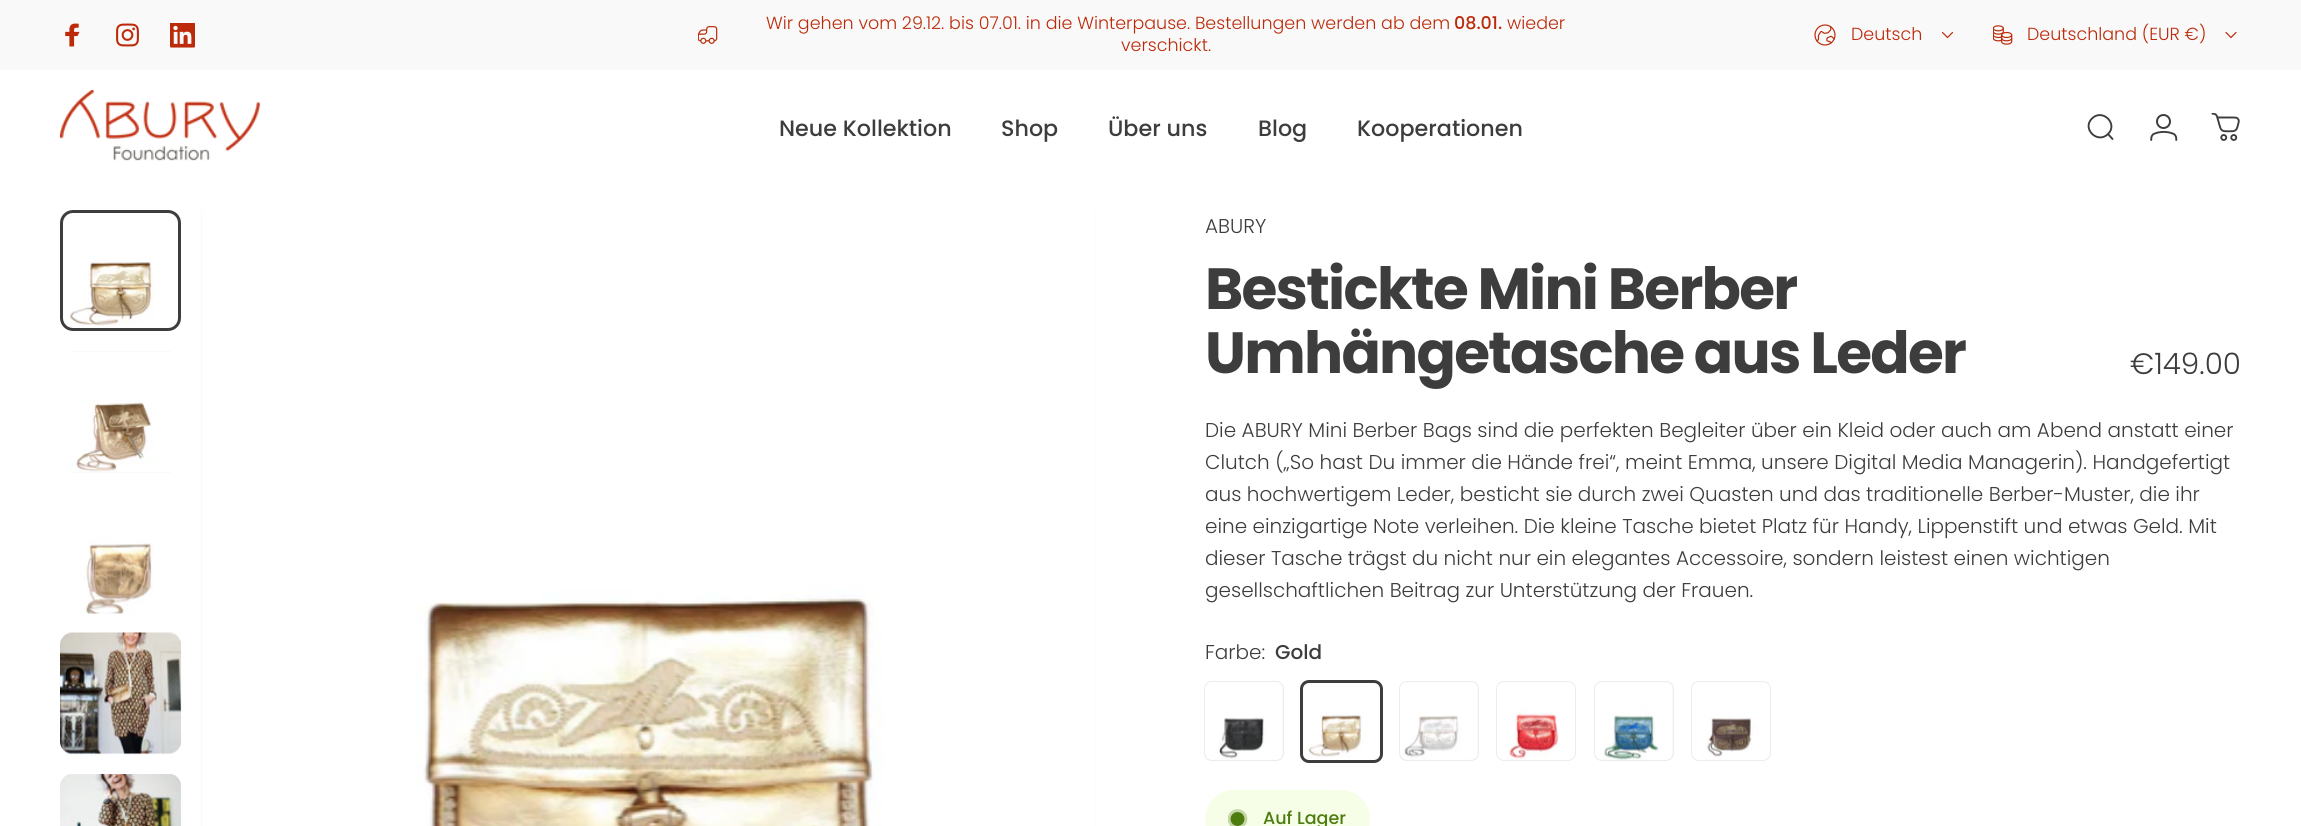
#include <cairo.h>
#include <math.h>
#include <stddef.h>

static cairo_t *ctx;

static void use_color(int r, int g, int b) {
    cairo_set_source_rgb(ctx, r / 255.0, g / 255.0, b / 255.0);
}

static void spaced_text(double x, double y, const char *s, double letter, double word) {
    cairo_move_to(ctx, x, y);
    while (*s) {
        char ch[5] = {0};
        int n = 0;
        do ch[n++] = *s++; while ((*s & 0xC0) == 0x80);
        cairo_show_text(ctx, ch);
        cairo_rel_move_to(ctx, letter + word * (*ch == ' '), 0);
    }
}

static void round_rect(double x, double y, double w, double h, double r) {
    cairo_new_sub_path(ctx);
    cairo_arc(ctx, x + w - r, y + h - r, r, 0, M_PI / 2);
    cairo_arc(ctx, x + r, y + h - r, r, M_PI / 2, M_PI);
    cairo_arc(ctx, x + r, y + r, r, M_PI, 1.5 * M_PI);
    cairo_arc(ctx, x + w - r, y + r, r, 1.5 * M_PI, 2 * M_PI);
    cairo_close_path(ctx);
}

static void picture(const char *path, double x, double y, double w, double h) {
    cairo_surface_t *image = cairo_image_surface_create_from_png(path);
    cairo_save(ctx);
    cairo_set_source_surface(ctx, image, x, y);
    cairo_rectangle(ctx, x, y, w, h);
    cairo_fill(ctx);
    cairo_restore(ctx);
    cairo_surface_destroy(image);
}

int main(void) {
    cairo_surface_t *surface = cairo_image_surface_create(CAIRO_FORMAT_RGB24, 2301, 826);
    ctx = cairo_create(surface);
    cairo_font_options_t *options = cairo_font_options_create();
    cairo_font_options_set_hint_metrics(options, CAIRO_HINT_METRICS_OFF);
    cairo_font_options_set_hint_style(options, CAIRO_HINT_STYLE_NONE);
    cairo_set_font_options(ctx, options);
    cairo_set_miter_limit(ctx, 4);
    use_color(255, 255, 255);
    cairo_paint(ctx);
    use_color(249, 249, 249);
    cairo_rectangle(ctx, 0, 0, 2301, 70);
    cairo_fill(ctx);
    picture("img1.png", 65, 23, 15, 24);
    picture("img2.png", 116, 23, 23, 24);
    picture("img3.png", 170, 23, 25, 25);
    picture("img4.png", 698, 26, 20, 18);
    cairo_select_font_face(ctx, "Poppins Light", CAIRO_FONT_SLANT_NORMAL, CAIRO_FONT_WEIGHT_NORMAL);
    cairo_set_font_size(ctx, 17.5);
    use_color(188, 42, 10);
    cairo_move_to(ctx, 766, 29);
    cairo_show_text(ctx, "Wir gehen vom 29.12. bis 07.01. in die Winterpause. Bestellungen werden ab dem");
    cairo_select_font_face(ctx, "Poppins Medium", CAIRO_FONT_SLANT_NORMAL, CAIRO_FONT_WEIGHT_NORMAL);
    cairo_move_to(ctx, 1454, 29);
    cairo_show_text(ctx, "08.01.");
    cairo_select_font_face(ctx, "Poppins Light", CAIRO_FONT_SLANT_NORMAL, CAIRO_FONT_WEIGHT_NORMAL);
    cairo_move_to(ctx, 1507, 29);
    cairo_show_text(ctx, "wieder");
    cairo_move_to(ctx, 1121, 51);
    cairo_show_text(ctx, "verschickt.");
    picture("img5.png", 1814, 24, 22, 22);
    cairo_move_to(ctx, 1851, 40);
    cairo_show_text(ctx, "Deutsch");
    cairo_new_path(ctx);
    cairo_move_to(ctx, 1942.5, 32.5);
    cairo_line_to(ctx, 1947.5, 37.5);
    cairo_line_to(ctx, 1952.5, 32.5);
    cairo_set_line_width(ctx, 1.2);
    cairo_set_line_cap(ctx, CAIRO_LINE_CAP_ROUND);
    cairo_set_line_join(ctx, CAIRO_LINE_JOIN_ROUND);
    cairo_stroke(ctx);
    picture("img6.png", 1993, 25, 20, 20);
    cairo_move_to(ctx, 2027, 40);
    cairo_show_text(ctx, "Deutschland (EUR €)");
    cairo_new_path(ctx);
    cairo_move_to(ctx, 2226, 32.5);
    cairo_line_to(ctx, 2231, 37.5);
    cairo_line_to(ctx, 2236, 32.5);
    cairo_stroke(ctx);
    picture("img7.png", 60, 90, 200, 71);
    cairo_select_font_face(ctx, "Poppins Medium", CAIRO_FONT_SLANT_NORMAL, CAIRO_FONT_WEIGHT_NORMAL);
    cairo_set_font_size(ctx, 22.25);
    use_color(61, 61, 61);
    cairo_move_to(ctx, 779, 136);
    cairo_show_text(ctx, "Neue Kollektion");
    cairo_move_to(ctx, 1001, 136);
    cairo_show_text(ctx, "Shop");
    cairo_move_to(ctx, 1108, 136);
    cairo_show_text(ctx, "Über uns");
    cairo_move_to(ctx, 1258, 136);
    cairo_show_text(ctx, "Blog");
    cairo_move_to(ctx, 1357, 136);
    cairo_show_text(ctx, "Kooperationen");
    cairo_new_path(ctx);
    cairo_move_to(ctx, 2112.5, 139);
    cairo_line_to(ctx, 2108, 134);
    cairo_move_to(ctx, 2108, 134);
    cairo_curve_to(ctx, 2118.5, 124, 2102.5, 108, 2092, 118.5);
    cairo_curve_to(ctx, 2081.5, 128.5, 2097.5, 144.5, 2108, 134);
    cairo_close_path(ctx);
    cairo_set_line_width(ctx, 1.9);
    cairo_set_line_join(ctx, CAIRO_LINE_JOIN_MITER);
    cairo_stroke(ctx);
    picture("img8.png", 2150, 114, 28, 27);
    picture("img9.png", 2211, 113, 29, 28);
    picture("img10.png", 60, 210, 121, 121);
    round_rect(61.5, 211.5, 118, 118, 11.5);
    cairo_set_line_width(ctx, 3);
    cairo_set_line_cap(ctx, CAIRO_LINE_CAP_BUTT);
    cairo_stroke(ctx);
    use_color(249, 249, 249);
    round_rect(60, 351, 121, 122, 13);
    cairo_fill(ctx);
    picture("img11.png", 60, 352, 121, 120);
    picture("img12.png", 60, 493, 121, 121);
    round_rect(60, 633, 121, 121, 13);
    cairo_fill(ctx);
    picture("img13.png", 60, 632, 122, 123);
    picture("img14.png", 60, 774, 122, 52);
    cairo_rectangle(ctx, 201, 210, 895, 616);
    cairo_fill(ctx);
    picture("img15.png", 202, 210, 894, 616);
    cairo_select_font_face(ctx, "Poppins Light", CAIRO_FONT_SLANT_NORMAL, CAIRO_FONT_WEIGHT_NORMAL);
    cairo_set_font_size(ctx, 20);
    use_color(61, 61, 61);
    cairo_move_to(ctx, 1205, 233);
    cairo_show_text(ctx, "ABURY");
    cairo_select_font_face(ctx, "Poppins", CAIRO_FONT_SLANT_NORMAL, CAIRO_FONT_WEIGHT_BOLD);
    cairo_set_font_size(ctx, 58.1);
    spaced_text(1205, 309, "Bestickte Mini Berber", -1.75, 0);
    spaced_text(1205, 373, "Umhängetasche aus Leder", -1.75, 0);
    cairo_select_font_face(ctx, "Poppins Light", CAIRO_FONT_SLANT_NORMAL, CAIRO_FONT_WEIGHT_NORMAL);
    cairo_set_font_size(ctx, 29.5);
    cairo_move_to(ctx, 2130, 374);
    cairo_show_text(ctx, "€149.00");
    cairo_set_font_size(ctx, 20);
    cairo_move_to(ctx, 1205, 437);
    cairo_show_text(ctx, "Die ABURY Mini Berber Bags sind die perfekten Begleiter über ein Kleid oder auch am Abend anstatt einer");
    cairo_move_to(ctx, 1205, 469);
    cairo_show_text(ctx, "Clutch („So hast Du immer die Hände frei“, meint Emma, unsere Digital Media Managerin). Handgefertigt");
    cairo_move_to(ctx, 1205, 501);
    cairo_show_text(ctx, "aus hochwertigem Leder, besticht sie durch zwei Quasten und das traditionelle Berber-Muster, die ihr");
    cairo_move_to(ctx, 1205, 533);
    cairo_show_text(ctx, "eine einzigartige Note verleihen. Die kleine Tasche bietet Platz für Handy, Lippenstift und etwas Geld. Mit");
    cairo_move_to(ctx, 1205, 565);
    cairo_show_text(ctx, "dieser Tasche trägst du nicht nur ein elegantes Accessoire, sondern leistest einen wichtigen");
    cairo_move_to(ctx, 1205, 597);
    cairo_show_text(ctx, "gesellschaftlichen Beitrag zur Unterstützung der Frauen.");
    cairo_move_to(ctx, 1205, 659);
    cairo_show_text(ctx, "Farbe:");
    cairo_select_font_face(ctx, "Poppins Medium", CAIRO_FONT_SLANT_NORMAL, CAIRO_FONT_WEIGHT_NORMAL);
    cairo_move_to(ctx, 1275, 659);
    cairo_show_text(ctx, "Gold");
    use_color(249, 249, 249);
    round_rect(1205, 683, 78, 77, 6);
    cairo_fill(ctx);
    picture("img16.png", 1205, 683, 77, 77);
    round_rect(1204.5, 681.5, 79, 79, 7.5);
    cairo_set_source_rgba(ctx, 0.239, 0.239, 0.239, 0.1);
    cairo_set_line_width(ctx, 1);
    cairo_stroke(ctx);
    picture("img17.png", 1303, 683, 77, 77);
    round_rect(1304.5, 684.5, 74, 74, 4.5);
    use_color(255, 255, 255);
    cairo_set_line_width(ctx, 3);
    cairo_stroke(ctx);
    round_rect(1301.5, 681.5, 80, 80, 7.5);
    use_color(61, 61, 61);
    cairo_stroke(ctx);
    use_color(249, 249, 249);
    round_rect(1400, 683, 78, 77, 6);
    cairo_fill(ctx);
    picture("img18.png", 1400, 683, 77, 77);
    round_rect(1399.5, 681.5, 79, 79, 7.5);
    cairo_set_source_rgba(ctx, 0.239, 0.239, 0.239, 0.1);
    cairo_set_line_width(ctx, 1);
    cairo_stroke(ctx);
    picture("img19.png", 1498, 683, 77, 77);
    round_rect(1496.5, 681.5, 79, 79, 7.5);
    use_color(236, 236, 236);
    cairo_stroke(ctx);
    use_color(249, 249, 249);
    round_rect(1595, 683, 78, 77, 6);
    cairo_fill(ctx);
    picture("img20.png", 1595, 683, 77, 78);
    round_rect(1594.5, 681.5, 79, 79, 7.5);
    cairo_set_source_rgba(ctx, 0.239, 0.239, 0.239, 0.1);
    cairo_stroke(ctx);
    picture("img21.png", 1693, 683, 77, 77);
    round_rect(1691.5, 681.5, 79, 79, 7.5);
    use_color(236, 236, 236);
    cairo_stroke(ctx);
    use_color(247, 254, 231);
    round_rect(1205, 790, 165, 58, 29);
    cairo_fill(ctx);
    use_color(77, 124, 15);
    cairo_arc(ctx, 1237.5, 819, 6, 0, 2 * M_PI);
    cairo_fill_preserve(ctx);
    cairo_set_line_width(ctx, 1.9);
    cairo_stroke(ctx);
    cairo_save(ctx);
    cairo_rectangle(ctx, 1228, 809, 20, 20);
    cairo_clip(ctx);
    cairo_arc(ctx, 1237.5, 819, 8, 0, 2 * M_PI);
    cairo_set_source_rgba(ctx, 0.302, 0.486, 0.059, 0.3);
    cairo_set_line_width(ctx, 3.8);
    cairo_stroke(ctx);
    cairo_restore(ctx);
    cairo_set_font_size(ctx, 17.5);
    cairo_move_to(ctx, 1263, 824);
    cairo_show_text(ctx, "Auf Lager");
    cairo_surface_write_to_png(surface, "result.png");
    cairo_font_options_destroy(options);
    cairo_destroy(ctx);
    cairo_surface_destroy(surface);
    return 0;
}
